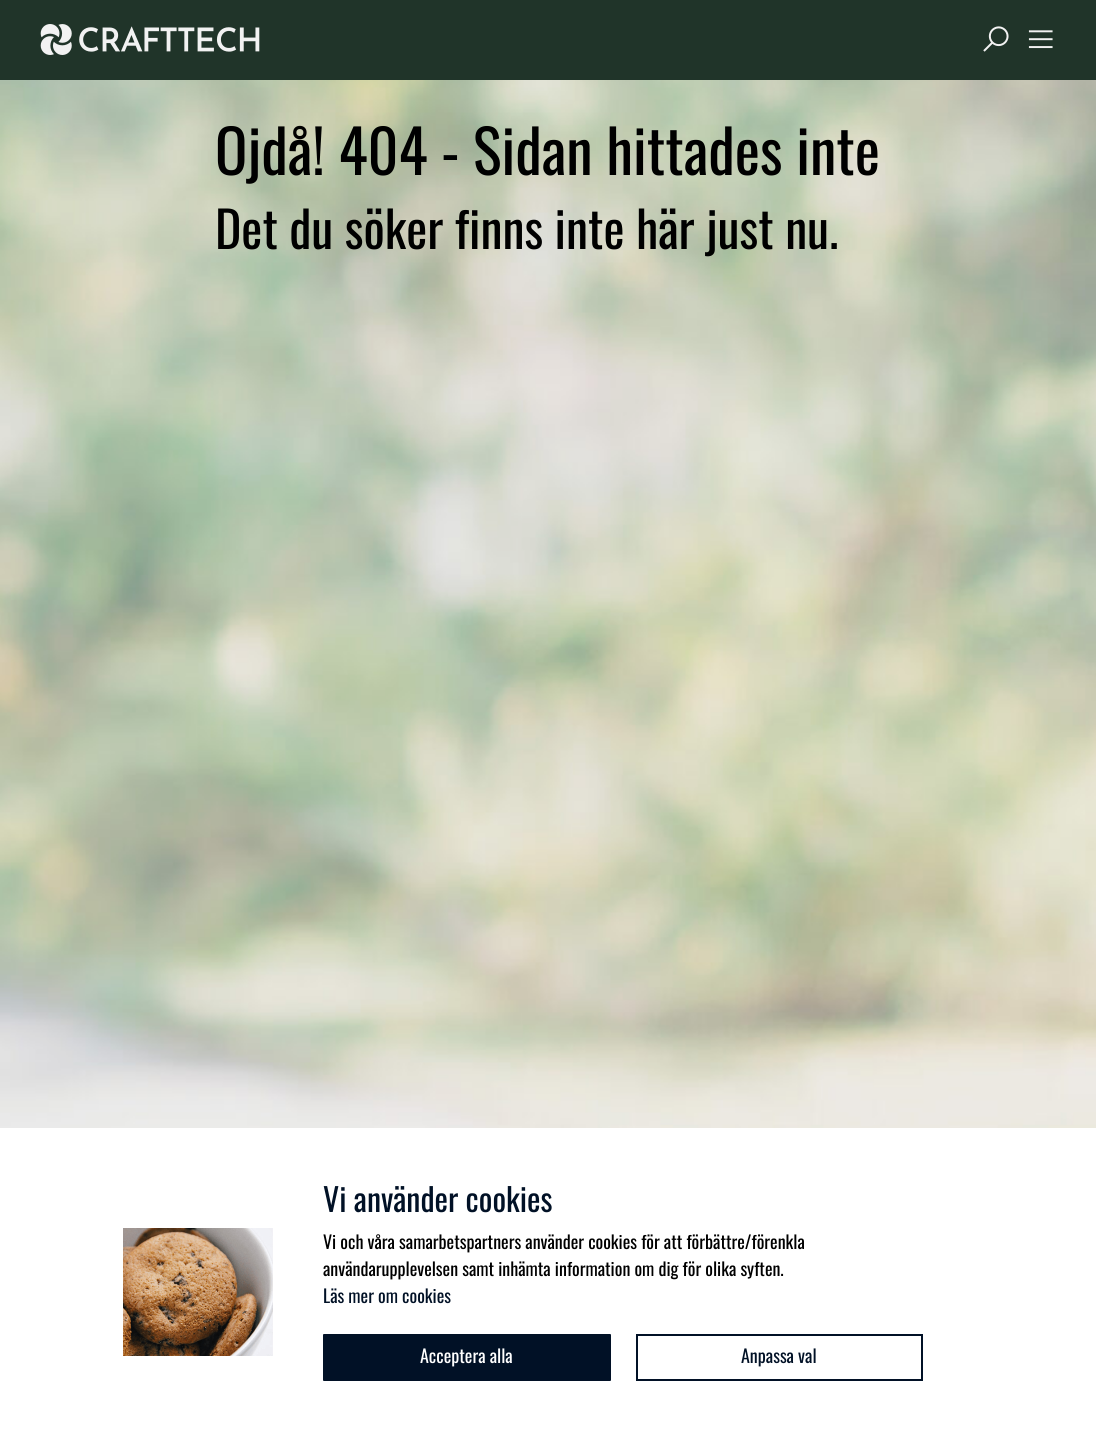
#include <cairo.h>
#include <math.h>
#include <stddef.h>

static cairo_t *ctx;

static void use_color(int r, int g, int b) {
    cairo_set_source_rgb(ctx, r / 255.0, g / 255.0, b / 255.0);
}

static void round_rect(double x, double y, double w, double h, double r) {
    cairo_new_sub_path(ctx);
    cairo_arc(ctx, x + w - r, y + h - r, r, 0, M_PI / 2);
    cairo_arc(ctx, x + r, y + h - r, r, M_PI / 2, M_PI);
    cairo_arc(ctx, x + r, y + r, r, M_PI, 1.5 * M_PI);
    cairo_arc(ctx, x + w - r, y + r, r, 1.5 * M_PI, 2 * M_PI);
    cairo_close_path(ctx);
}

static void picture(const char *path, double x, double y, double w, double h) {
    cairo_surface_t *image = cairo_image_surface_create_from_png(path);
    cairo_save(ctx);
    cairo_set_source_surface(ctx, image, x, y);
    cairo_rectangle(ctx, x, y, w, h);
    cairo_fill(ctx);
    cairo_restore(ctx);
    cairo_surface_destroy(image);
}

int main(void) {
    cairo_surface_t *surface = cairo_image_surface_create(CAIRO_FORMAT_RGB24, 1096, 1456);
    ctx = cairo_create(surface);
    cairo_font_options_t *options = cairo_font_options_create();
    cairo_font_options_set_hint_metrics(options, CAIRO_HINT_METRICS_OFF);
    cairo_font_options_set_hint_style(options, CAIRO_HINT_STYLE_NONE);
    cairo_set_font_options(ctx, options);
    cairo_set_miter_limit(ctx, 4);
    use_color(255, 255, 255);
    cairo_paint(ctx);
    picture("img1.png", 0, 80, 1096, 1048);
    use_color(32, 52, 41);
    cairo_rectangle(ctx, 0, 0, 1096, 80);
    cairo_fill(ctx);
    picture("img2.png", 40, 24, 220, 31);
    picture("img3.png", 983, 26, 26, 26);
    picture("img4.png", 1028, 30, 25, 19);
    cairo_select_font_face(ctx, "Oswald", CAIRO_FONT_SLANT_NORMAL, CAIRO_FONT_WEIGHT_NORMAL);
    cairo_set_font_size(ctx, 60);
    use_color(0, 0, 0);
    cairo_move_to(ctx, 215, 175);
    cairo_show_text(ctx, "Ojdå! 404 - Sidan hittades inte");
    cairo_set_font_size(ctx, 50);
    cairo_move_to(ctx, 215, 249);
    cairo_show_text(ctx, "Det du söker finns inte här just nu.");
    picture("img5.png", 123, 1228, 150, 128);
    cairo_set_font_size(ctx, 32);
    use_color(1, 17, 38);
    cairo_move_to(ctx, 323, 1212);
    cairo_show_text(ctx, "Vi använder cookies");
    cairo_set_font_size(ctx, 18);
    use_color(0, 0, 0);
    cairo_move_to(ctx, 323, 1249);
    cairo_show_text(ctx, "Vi och våra samarbetspartners använder cookies för att förbättre/förenkla");
    cairo_move_to(ctx, 323, 1276);
    cairo_show_text(ctx, "användarupplevelsen samt inhämta information om dig för olika syften.");
    use_color(1, 17, 38);
    cairo_move_to(ctx, 323, 1303);
    cairo_show_text(ctx, "Läs mer om cookies");
    round_rect(323, 1334, 288, 47, 1);
    cairo_fill(ctx);
    use_color(255, 255, 255);
    cairo_move_to(ctx, 420, 1363);
    cairo_show_text(ctx, "Acceptera alla");
    cairo_rectangle(ctx, 637, 1335, 285, 45);
    use_color(1, 17, 38);
    cairo_stroke(ctx);
    cairo_move_to(ctx, 741, 1363);
    cairo_show_text(ctx, "Anpassa val");
    cairo_surface_write_to_png(surface, "result.png");
    cairo_font_options_destroy(options);
    cairo_destroy(ctx);
    cairo_surface_destroy(surface);
    return 0;
}
